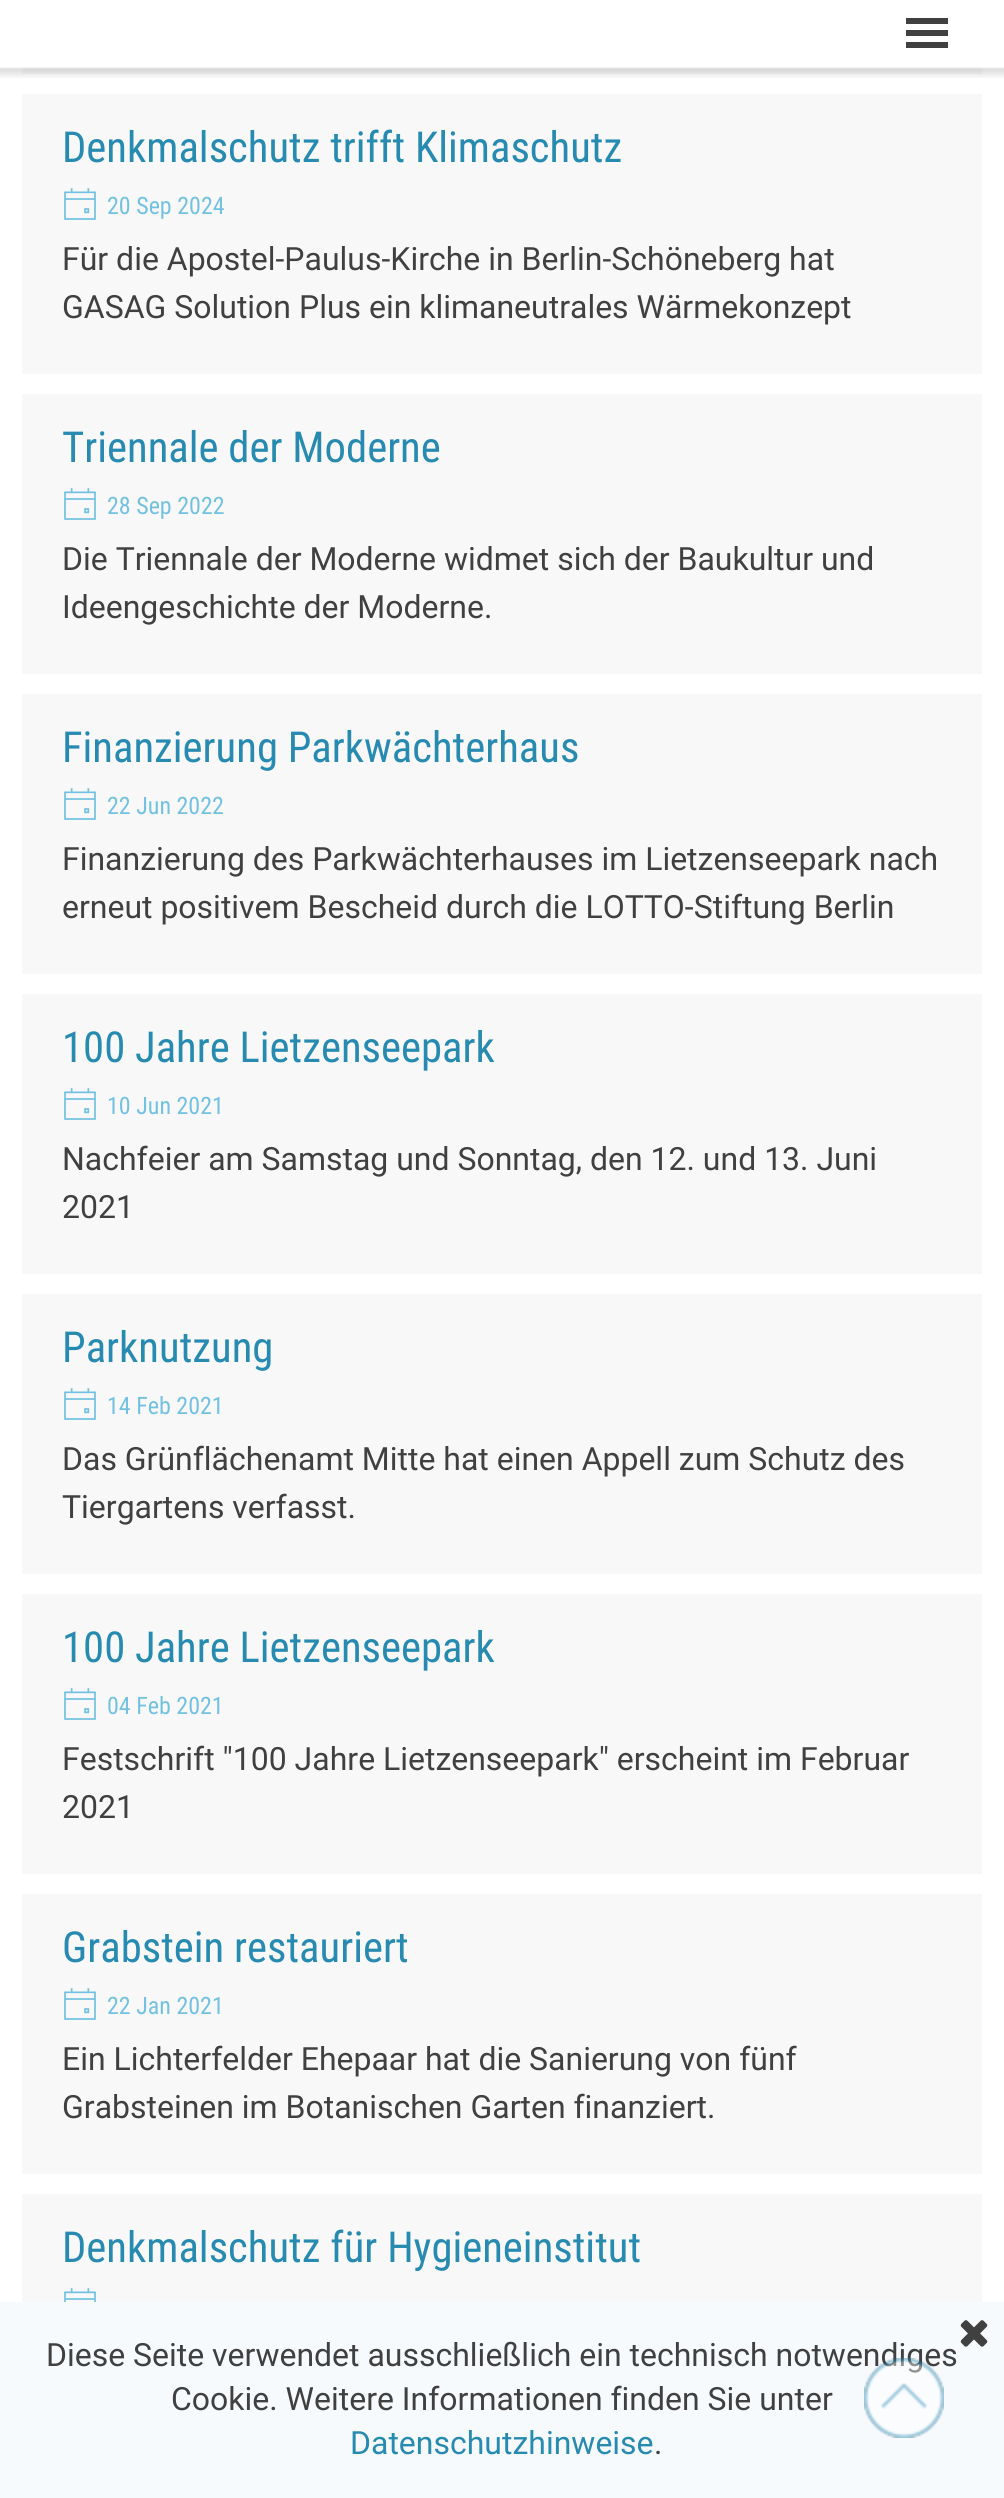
#include <cairo.h>
#include <math.h>
#include <stddef.h>

static cairo_t *ctx;

static void use_color(int r, int g, int b) {
    cairo_set_source_rgb(ctx, r / 255.0, g / 255.0, b / 255.0);
}

static void picture(const char *path, double x, double y, double w, double h) {
    cairo_surface_t *image = cairo_image_surface_create_from_png(path);
    cairo_save(ctx);
    cairo_set_source_surface(ctx, image, x, y);
    cairo_rectangle(ctx, x, y, w, h);
    cairo_fill(ctx);
    cairo_restore(ctx);
    cairo_surface_destroy(image);
}

int main(void) {
    cairo_surface_t *surface = cairo_image_surface_create(CAIRO_FORMAT_RGB24, 1004, 2498);
    ctx = cairo_create(surface);
    cairo_font_options_t *options = cairo_font_options_create();
    cairo_font_options_set_hint_metrics(options, CAIRO_HINT_METRICS_OFF);
    cairo_font_options_set_hint_style(options, CAIRO_HINT_STYLE_NONE);
    cairo_set_font_options(ctx, options);
    cairo_set_miter_limit(ctx, 4);
    use_color(255, 255, 255);
    cairo_paint(ctx);
    use_color(248, 248, 248);
    cairo_rectangle(ctx, 22, 66, 960, 8);
    cairo_fill(ctx);
    picture("img1.png", 0, 0, 1004, 78);
    use_color(64, 64, 64);
    cairo_rectangle(ctx, 906, 18, 42, 6);
    cairo_fill(ctx);
    cairo_rectangle(ctx, 906, 30, 42, 6);
    cairo_fill(ctx);
    cairo_rectangle(ctx, 906, 42, 42, 6);
    cairo_fill(ctx);
    use_color(248, 248, 248);
    cairo_rectangle(ctx, 22, 94, 960, 280);
    cairo_fill(ctx);
    cairo_select_font_face(ctx, "Roboto Condensed", CAIRO_FONT_SLANT_NORMAL, CAIRO_FONT_WEIGHT_NORMAL);
    cairo_set_font_size(ctx, 42.7);
    use_color(39, 138, 177);
    cairo_move_to(ctx, 62, 162);
    cairo_show_text(ctx, "Denkmalschutz trifft Klimaschutz");
    picture("img2.png", 64, 188, 32, 32);
    cairo_set_font_size(ctx, 24);
    use_color(114, 193, 224);
    cairo_move_to(ctx, 107, 214);
    cairo_show_text(ctx, "20 Sep 2024");
    cairo_select_font_face(ctx, "Roboto", CAIRO_FONT_SLANT_NORMAL, CAIRO_FONT_WEIGHT_NORMAL);
    cairo_set_font_size(ctx, 32);
    use_color(64, 64, 64);
    cairo_move_to(ctx, 62, 270);
    cairo_show_text(ctx, "Für die Apostel-Paulus-Kirche in Berlin-Schöneberg hat");
    cairo_move_to(ctx, 62, 318);
    cairo_show_text(ctx, "GASAG Solution Plus ein klimaneutrales Wärmekonzept");
    use_color(248, 248, 248);
    cairo_rectangle(ctx, 22, 394, 960, 280);
    cairo_fill(ctx);
    cairo_select_font_face(ctx, "Roboto Condensed", CAIRO_FONT_SLANT_NORMAL, CAIRO_FONT_WEIGHT_NORMAL);
    cairo_set_font_size(ctx, 42.7);
    use_color(39, 138, 177);
    cairo_move_to(ctx, 62, 462);
    cairo_show_text(ctx, "Triennale der Moderne");
    picture("img2.png", 64, 488, 32, 32);
    cairo_set_font_size(ctx, 24);
    use_color(114, 193, 224);
    cairo_move_to(ctx, 107, 514);
    cairo_show_text(ctx, "28 Sep 2022");
    cairo_select_font_face(ctx, "Roboto", CAIRO_FONT_SLANT_NORMAL, CAIRO_FONT_WEIGHT_NORMAL);
    cairo_set_font_size(ctx, 32);
    use_color(64, 64, 64);
    cairo_move_to(ctx, 62, 570);
    cairo_show_text(ctx, "Die Triennale der Moderne widmet sich der Baukultur und");
    cairo_move_to(ctx, 62, 618);
    cairo_show_text(ctx, "Ideengeschichte der Moderne.");
    use_color(248, 248, 248);
    cairo_rectangle(ctx, 22, 694, 960, 280);
    cairo_fill(ctx);
    cairo_select_font_face(ctx, "Roboto Condensed", CAIRO_FONT_SLANT_NORMAL, CAIRO_FONT_WEIGHT_NORMAL);
    cairo_set_font_size(ctx, 42.7);
    use_color(39, 138, 177);
    cairo_move_to(ctx, 62, 762);
    cairo_show_text(ctx, "Finanzierung Parkwächterhaus");
    picture("img2.png", 64, 788, 32, 32);
    cairo_set_font_size(ctx, 24);
    use_color(114, 193, 224);
    cairo_move_to(ctx, 107, 814);
    cairo_show_text(ctx, "22 Jun 2022");
    cairo_select_font_face(ctx, "Roboto", CAIRO_FONT_SLANT_NORMAL, CAIRO_FONT_WEIGHT_NORMAL);
    cairo_set_font_size(ctx, 32);
    use_color(64, 64, 64);
    cairo_move_to(ctx, 62, 870);
    cairo_show_text(ctx, "Finanzierung des Parkwächterhauses im Lietzenseepark nach");
    cairo_move_to(ctx, 62, 918);
    cairo_show_text(ctx, "erneut positivem Bescheid durch die LOTTO-Stiftung Berlin");
    use_color(248, 248, 248);
    cairo_rectangle(ctx, 22, 994, 960, 280);
    cairo_fill(ctx);
    cairo_select_font_face(ctx, "Roboto Condensed", CAIRO_FONT_SLANT_NORMAL, CAIRO_FONT_WEIGHT_NORMAL);
    cairo_set_font_size(ctx, 42.7);
    use_color(39, 138, 177);
    cairo_move_to(ctx, 62, 1062);
    cairo_show_text(ctx, "100 Jahre Lietzenseepark");
    picture("img2.png", 64, 1088, 32, 32);
    cairo_set_font_size(ctx, 24);
    use_color(114, 193, 224);
    cairo_move_to(ctx, 107, 1114);
    cairo_show_text(ctx, "10 Jun 2021");
    cairo_select_font_face(ctx, "Roboto", CAIRO_FONT_SLANT_NORMAL, CAIRO_FONT_WEIGHT_NORMAL);
    cairo_set_font_size(ctx, 32);
    use_color(64, 64, 64);
    cairo_move_to(ctx, 62, 1170);
    cairo_show_text(ctx, "Nachfeier am Samstag und Sonntag, den 12. und 13. Juni");
    cairo_move_to(ctx, 62, 1218);
    cairo_show_text(ctx, "2021");
    use_color(248, 248, 248);
    cairo_rectangle(ctx, 22, 1294, 960, 280);
    cairo_fill(ctx);
    cairo_select_font_face(ctx, "Roboto Condensed", CAIRO_FONT_SLANT_NORMAL, CAIRO_FONT_WEIGHT_NORMAL);
    cairo_set_font_size(ctx, 42.7);
    use_color(39, 138, 177);
    cairo_move_to(ctx, 62, 1362);
    cairo_show_text(ctx, "Parknutzung");
    picture("img2.png", 64, 1388, 32, 32);
    cairo_set_font_size(ctx, 24);
    use_color(114, 193, 224);
    cairo_move_to(ctx, 107, 1414);
    cairo_show_text(ctx, "14 Feb 2021");
    cairo_select_font_face(ctx, "Roboto", CAIRO_FONT_SLANT_NORMAL, CAIRO_FONT_WEIGHT_NORMAL);
    cairo_set_font_size(ctx, 32);
    use_color(64, 64, 64);
    cairo_move_to(ctx, 62, 1470);
    cairo_show_text(ctx, "Das Grünflächenamt Mitte hat einen Appell zum Schutz des");
    cairo_move_to(ctx, 62, 1518);
    cairo_show_text(ctx, "Tiergartens verfasst.");
    use_color(248, 248, 248);
    cairo_rectangle(ctx, 22, 1594, 960, 280);
    cairo_fill(ctx);
    cairo_select_font_face(ctx, "Roboto Condensed", CAIRO_FONT_SLANT_NORMAL, CAIRO_FONT_WEIGHT_NORMAL);
    cairo_set_font_size(ctx, 42.7);
    use_color(39, 138, 177);
    cairo_move_to(ctx, 62, 1662);
    cairo_show_text(ctx, "100 Jahre Lietzenseepark");
    picture("img2.png", 64, 1688, 32, 32);
    cairo_set_font_size(ctx, 24);
    use_color(114, 193, 224);
    cairo_move_to(ctx, 107, 1714);
    cairo_show_text(ctx, "04 Feb 2021");
    cairo_select_font_face(ctx, "Roboto", CAIRO_FONT_SLANT_NORMAL, CAIRO_FONT_WEIGHT_NORMAL);
    cairo_set_font_size(ctx, 32);
    use_color(64, 64, 64);
    cairo_move_to(ctx, 62, 1770);
    cairo_show_text(ctx, "Festschrift \"100 Jahre Lietzenseepark\" erscheint im Februar");
    cairo_move_to(ctx, 62, 1818);
    cairo_show_text(ctx, "2021");
    use_color(248, 248, 248);
    cairo_rectangle(ctx, 22, 1894, 960, 280);
    cairo_fill(ctx);
    cairo_select_font_face(ctx, "Roboto Condensed", CAIRO_FONT_SLANT_NORMAL, CAIRO_FONT_WEIGHT_NORMAL);
    cairo_set_font_size(ctx, 42.7);
    use_color(39, 138, 177);
    cairo_move_to(ctx, 62, 1962);
    cairo_show_text(ctx, "Grabstein restauriert");
    picture("img2.png", 64, 1988, 32, 32);
    cairo_set_font_size(ctx, 24);
    use_color(114, 193, 224);
    cairo_move_to(ctx, 107, 2014);
    cairo_show_text(ctx, "22 Jan 2021");
    cairo_select_font_face(ctx, "Roboto", CAIRO_FONT_SLANT_NORMAL, CAIRO_FONT_WEIGHT_NORMAL);
    cairo_set_font_size(ctx, 32);
    use_color(64, 64, 64);
    cairo_move_to(ctx, 62, 2070);
    cairo_show_text(ctx, "Ein Lichterfelder Ehepaar hat die Sanierung von fünf");
    cairo_move_to(ctx, 62, 2118);
    cairo_show_text(ctx, "Grabsteinen im Botanischen Garten finanziert.");
    use_color(248, 248, 248);
    cairo_rectangle(ctx, 22, 2194, 960, 108);
    cairo_fill(ctx);
    cairo_select_font_face(ctx, "Roboto Condensed", CAIRO_FONT_SLANT_NORMAL, CAIRO_FONT_WEIGHT_NORMAL);
    cairo_set_font_size(ctx, 42.7);
    use_color(39, 138, 177);
    cairo_move_to(ctx, 62, 2262);
    cairo_show_text(ctx, "Denkmalschutz für Hygieneinstitut");
    picture("img3.png", 64, 2288, 32, 14);
    use_color(247, 250, 253);
    cairo_rectangle(ctx, 0, 2302, 1004, 196);
    cairo_fill(ctx);
    picture("img4.png", 960, 2320, 28, 27);
    cairo_select_font_face(ctx, "Roboto", CAIRO_FONT_SLANT_NORMAL, CAIRO_FONT_WEIGHT_NORMAL);
    cairo_set_font_size(ctx, 32);
    use_color(64, 64, 64);
    cairo_move_to(ctx, 46, 2366);
    cairo_show_text(ctx, "Diese Seite verwendet ausschließlich ein technisch notwendiges");
    cairo_move_to(ctx, 171, 2410);
    cairo_show_text(ctx, "Cookie. Weitere Informationen finden Sie unter");
    use_color(39, 138, 177);
    cairo_move_to(ctx, 350, 2454);
    cairo_show_text(ctx, "Datenschutzhinweise");
    use_color(64, 64, 64);
    cairo_move_to(ctx, 654, 2454);
    cairo_show_text(ctx, ".");
    picture("img5.png", 864, 2358, 80, 80);
    cairo_surface_write_to_png(surface, "result.png");
    cairo_font_options_destroy(options);
    cairo_destroy(ctx);
    cairo_surface_destroy(surface);
    return 0;
}
